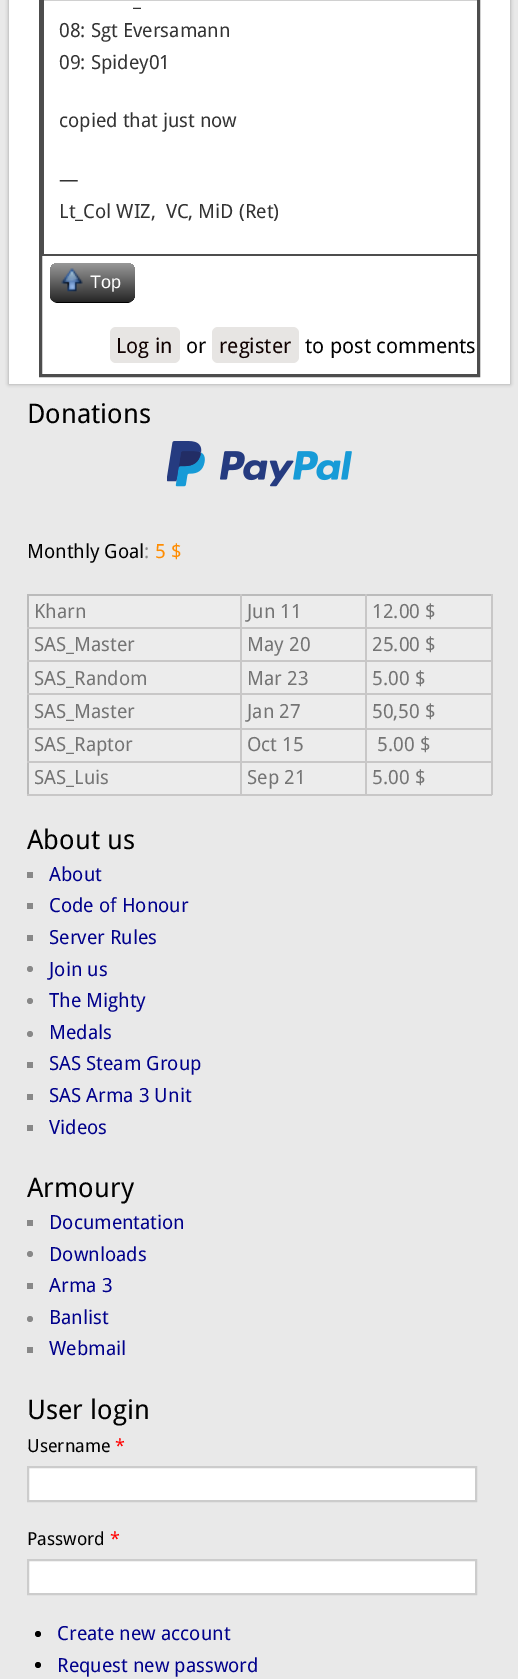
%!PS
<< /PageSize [518 1679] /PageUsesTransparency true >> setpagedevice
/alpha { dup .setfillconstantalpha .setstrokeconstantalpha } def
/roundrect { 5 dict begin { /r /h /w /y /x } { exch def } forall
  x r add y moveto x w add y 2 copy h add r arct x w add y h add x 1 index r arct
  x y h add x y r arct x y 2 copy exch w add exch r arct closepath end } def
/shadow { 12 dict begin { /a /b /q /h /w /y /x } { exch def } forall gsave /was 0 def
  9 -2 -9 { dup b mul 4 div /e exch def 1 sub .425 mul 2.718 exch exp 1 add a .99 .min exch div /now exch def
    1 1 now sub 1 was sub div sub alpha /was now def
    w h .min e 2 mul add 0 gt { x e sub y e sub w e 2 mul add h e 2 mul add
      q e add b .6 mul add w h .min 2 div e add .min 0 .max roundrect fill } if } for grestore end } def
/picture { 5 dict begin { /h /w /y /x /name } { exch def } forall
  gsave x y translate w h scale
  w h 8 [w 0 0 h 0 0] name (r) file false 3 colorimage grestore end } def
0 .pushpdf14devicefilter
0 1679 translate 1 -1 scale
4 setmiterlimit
0.914 setgray
0 0 518 1679 rectfill
0.6 setgray
9 -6 501 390 0 2 1 shadow
1 setgray
9 0 501 384 rectfill
0.302 setgray
3 setlinewidth
40.5 -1.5 438 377 rectstroke
42 0 2 254 rectfill
/DroidSans-Regular [19.5 0 0 -19.5 0 0] selectfont
0.2 setgray
133 6 moveto (_) show
59 37 moveto (08: Sgt Eversamann) show
59 69 moveto (09: Spidey01) show
59 127 moveto (copied that just now) show
59 186 moveto (—) show
59 218 moveto (Lt_Col WIZ,  VC, MiD \(Ret\)) show
0.302 setgray
42 254 435 2 rectfill
0 setgray
newpath 50 298 moveto 52 301 55 303 58 303 curveto 127 303 lineto 131 303 135 299 135 295 curveto 135 294 lineto 135 298 132 302 128 302 curveto 57 302 lineto 54 302 52 300 50 298 curveto closepath fill
gsave 50 263 85 39 8 roundrect clip newpath
<< /ShadingType 2 /ColorSpace /DeviceRGB /Coords [50 263 50 302] /Extend [true true] /Function << /FunctionType 2 /Domain [0 1] /C0 [0.6 0.6 0.6] /C1 [0.149 0.149 0.149] /N 1 >> >> shfill grestore
(img1.rgb) 61 268 22 24 picture
/LiberationSans-Regular [18 0 0 -18 0 0] selectfont
1 setgray
90 288 moveto (Top) show
0.906 0.898 0.89 setrgbcolor
110 327 70 36 6 roundrect fill
/DroidSans-Regular [21 0 0 -21 0 0] selectfont
0.063 0.004 0 setrgbcolor
116 353 moveto (Log in) show
0 setgray
186 353 moveto (or) show
0.906 0.898 0.89 setrgbcolor
212 327 87 36 6 roundrect fill
0.063 0.004 0 setrgbcolor
219 353 moveto (register) show
0 setgray
305 353 moveto (to post comments) show
/DroidSans-Regular [27 0 0 -27 0 0] selectfont
27 423 moveto (Donations) show
(img2.rgb) 167 441 185 46 picture
/DroidSans-Regular [19.5 0 0 -19.5 0 0] selectfont
27 558 moveto (Monthly Goal) show
0.533 setgray
144 558 moveto (:) show
1 0.549 0 setrgbcolor
155 558 moveto (5 $) show
0.925 setgray
29 596 462 198 rectfill
0.733 setgray
27 594 465 2 rectfill
27 594 2 201 rectfill
0.784 0.78 0.78 setrgbcolor
491 594 2 201 rectfill
365 794 127 2 rectfill
365 761 2 34 rectfill
365 761 127 2 rectfill
365 728 2 34 rectfill
365 728 127 2 rectfill
365 693 2 36 rectfill
365 693 127 2 rectfill
365 660 2 35 rectfill
365 660 127 2 rectfill
365 627 2 35 rectfill
365 627 127 2 rectfill
365 594 2 35 rectfill
240 794 126 2 rectfill
240 761 2 34 rectfill
240 761 126 2 rectfill
240 728 2 34 rectfill
240 728 126 2 rectfill
240 693 2 36 rectfill
240 693 126 2 rectfill
240 660 2 35 rectfill
240 660 126 2 rectfill
240 627 2 35 rectfill
240 627 126 2 rectfill
240 594 2 35 rectfill
27 627 215 2 rectfill
0.455 setgray
34 618 moveto (Kharn) show
247 618 moveto (Jun 11) show
372 618 moveto (12.00 $) show
0.784 0.78 0.78 setrgbcolor
27 660 215 2 rectfill
0.455 setgray
34 651 moveto (SAS_Master) show
247 651 moveto (May 20) show
372 651 moveto (25.00 $) show
0.784 0.78 0.78 setrgbcolor
27 693 215 2 rectfill
0.455 setgray
34 685 moveto (SAS_Random) show
247 685 moveto (Mar 23) show
372 685 moveto (5.00 $) show
0.784 0.78 0.78 setrgbcolor
27 728 215 2 rectfill
0.455 setgray
34 718 moveto (SAS_Master) show
247 718 moveto (Jan 27) show
372 718 moveto (50,50 $) show
0.784 0.78 0.78 setrgbcolor
27 761 215 2 rectfill
0.455 setgray
34 751 moveto (SAS_Raptor) show
247 751 moveto (Oct 15) show
377 751 moveto (5.00 $) show
0.784 0.78 0.78 setrgbcolor
27 794 215 2 rectfill
0.455 setgray
34 784 moveto (SAS_Luis) show
247 784 moveto (Sep 21) show
372 784 moveto (5.00 $) show
/DroidSans-Regular [27 0 0 -27 0 0] selectfont
0 setgray
27 849 moveto (About us) show
0.533 setgray
27 872 6 6 rectfill
/DroidSans-Regular [19.5 0 0 -19.5 0 0] selectfont
0 0 0.545 setrgbcolor
49 881 moveto (About) show
0.533 setgray
27 903 6 6 rectfill
0 0 0.545 setrgbcolor
49 912 moveto (Code of Honour) show
0.533 setgray
27 935 6 6 rectfill
0 0 0.545 setrgbcolor
49 944 moveto (Server Rules) show
0.533 setgray
newpath 30 969 3 0 360 arc closepath fill
0 0 0.545 setrgbcolor
49 976 moveto (Join us) show
0.533 setgray
newpath 30 1001 3 0 360 arc closepath fill
0 0 0.545 setrgbcolor
49 1007 moveto (The Mighty) show
0.533 setgray
newpath 30 1034 3 0 360 arc closepath fill
0 0 0.545 setrgbcolor
49 1039 moveto (Medals) show
0.533 setgray
27 1062 6 6 rectfill
0 0 0.545 setrgbcolor
49 1070 moveto (SAS Steam Group) show
0.533 setgray
27 1094 6 6 rectfill
0 0 0.545 setrgbcolor
49 1102 moveto (SAS Arma 3 Unit) show
0.533 setgray
27 1125 6 6 rectfill
0 0 0.545 setrgbcolor
49 1134 moveto (Videos) show
/DroidSans-Regular [27 0 0 -27 0 0] selectfont
0 setgray
27 1197 moveto (Armoury) show
0.533 setgray
27 1220 6 6 rectfill
/DroidSans-Regular [19.5 0 0 -19.5 0 0] selectfont
0 0 0.545 setrgbcolor
49 1229 moveto (Documentation) show
0.533 setgray
newpath 30 1254 3 0 360 arc closepath fill
0 0 0.545 setrgbcolor
49 1261 moveto (Downloads) show
0.533 setgray
27 1283 6 6 rectfill
0 0 0.545 setrgbcolor
49 1292 moveto (Arma 3) show
0.533 setgray
newpath 30 1319 3 0 360 arc closepath fill
0 0 0.545 setrgbcolor
49 1324 moveto (Banlist) show
0.533 setgray
27 1347 6 6 rectfill
0 0 0.545 setrgbcolor
49 1355 moveto (Webmail) show
/DroidSans-Regular [27 0 0 -27 0 0] selectfont
0 setgray
27 1419 moveto (User login) show
/DroidSans-Regular [18 0 0 -18 0 0] selectfont
27 1452 moveto (Username) show
1 0 0 setrgbcolor
115 1452 moveto (*) show
1 setgray
newpath 28 1467 moveto 476 1467 lineto 476 1501 lineto 28 1501 lineto closepath gsave fill grestore
0.8 setgray
2 setlinewidth
stroke
0 setgray
27 1545 moveto (Password) show
1 0 0 setrgbcolor
110 1545 moveto (*) show
1 setgray
newpath 28 1560 moveto 476 1560 lineto 476 1594 lineto 28 1594 lineto closepath gsave fill grestore
0.8 setgray
stroke
0 setgray
newpath 38 1634 3 0 360 arc closepath fill
/DroidSans-Regular [19.5 0 0 -19.5 0 0] selectfont
0 0 0.545 setrgbcolor
57 1640 moveto (Create new account) show
0 setgray
newpath 38 1665 3 0 360 arc closepath fill
0 0 0.545 setrgbcolor
57 1672 moveto (Request new password) show
.poppdf14devicefilter showpage
